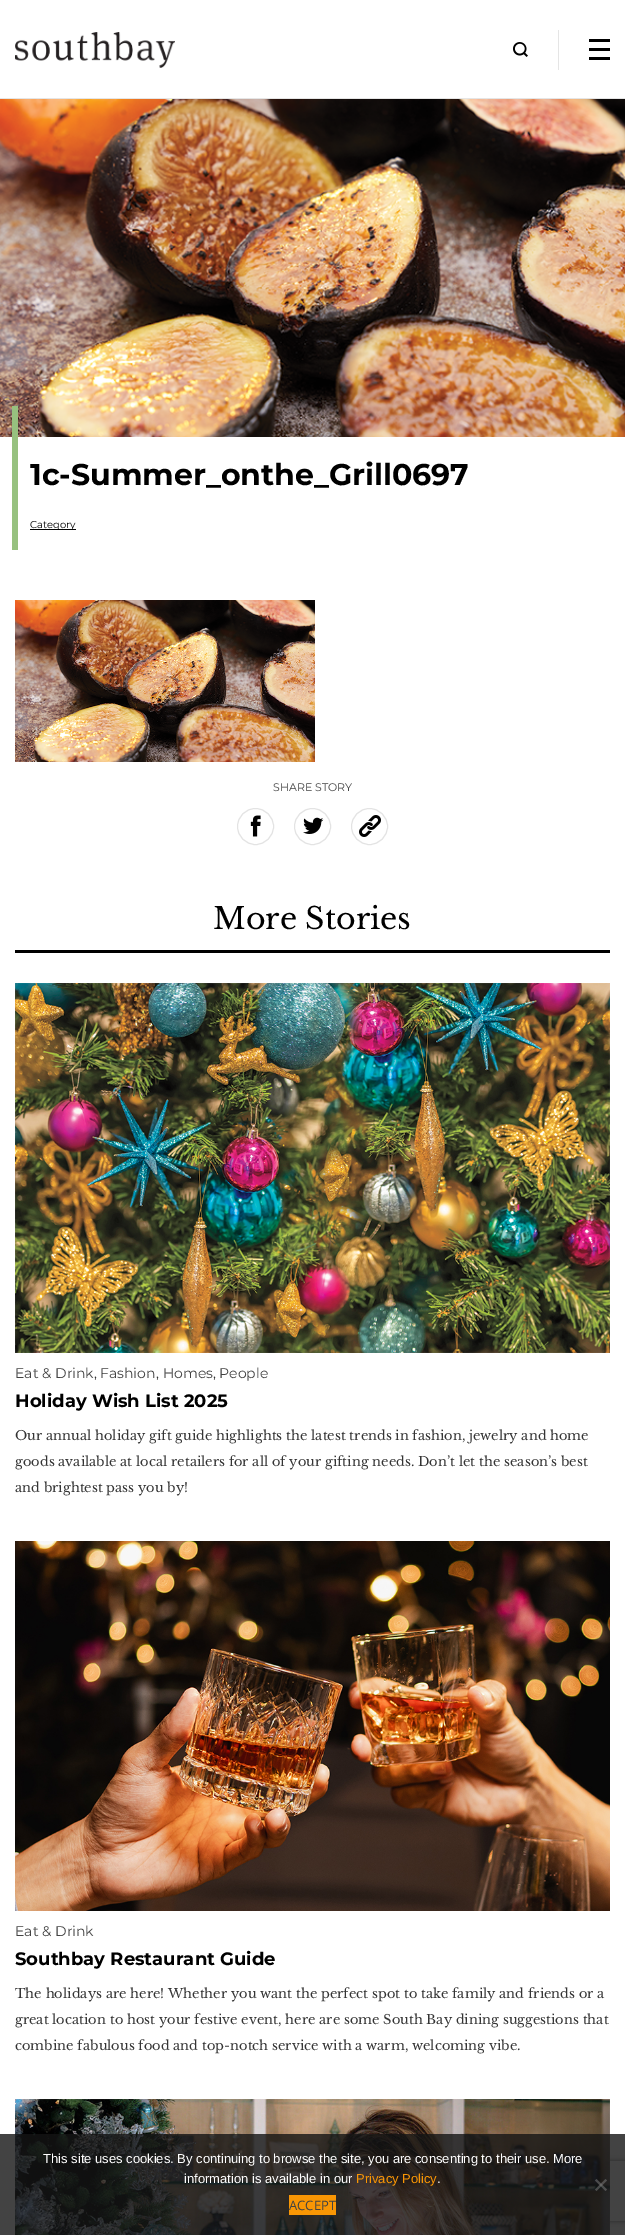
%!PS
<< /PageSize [625 2235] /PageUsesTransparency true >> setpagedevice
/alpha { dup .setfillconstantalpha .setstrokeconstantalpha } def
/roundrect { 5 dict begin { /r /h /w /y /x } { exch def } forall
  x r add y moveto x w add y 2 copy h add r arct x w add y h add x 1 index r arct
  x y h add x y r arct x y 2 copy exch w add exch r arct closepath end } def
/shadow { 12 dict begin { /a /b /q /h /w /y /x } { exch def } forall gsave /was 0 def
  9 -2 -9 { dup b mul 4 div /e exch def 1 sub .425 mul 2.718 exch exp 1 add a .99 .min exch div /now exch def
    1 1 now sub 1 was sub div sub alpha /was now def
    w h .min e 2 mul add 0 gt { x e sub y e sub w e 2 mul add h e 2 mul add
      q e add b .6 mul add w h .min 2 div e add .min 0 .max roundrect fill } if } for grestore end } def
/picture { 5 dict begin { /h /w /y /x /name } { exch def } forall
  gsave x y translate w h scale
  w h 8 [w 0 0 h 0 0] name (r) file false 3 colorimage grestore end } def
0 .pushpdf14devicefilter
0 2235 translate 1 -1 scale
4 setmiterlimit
1 setgray
0 0 625 2235 rectfill
(img1.rgb) 15 32 160 36 picture
0.898 setgray
558 30 1 40 rectfill
(img2.rgb) 513 42 15 15 picture
0 setgray
589 39 21 3 rectfill
589 48 21 3 rectfill
589 57 21 3 rectfill
0.898 setgray
0 98 625 1 rectfill
(img3.rgb) 0 99 625 338 picture
0.592 0.757 0.498 setrgbcolor
12 406 6 144 rectfill
/Montserrat-Bold [30 0 0 -30 0 0] selectfont
0 setgray
30 485 moveto (1c-Summer_onthe_Grill0697) show
30 529 46 1 rectfill
/Montserrat-Regular [10 0 0 -10 0 0] selectfont
30 528 moveto (Category) show
(img4.rgb) 15 600 300 162 picture
/Montserrat-Regular [11 0 0 -11 0 0] selectfont
0.259 setgray
273 791 moveto (SHARE STORY) show
0.89 setgray
newpath 255.5 826.5 18 0 360 arc closepath stroke
(img5.rgb) 250 815 11 22 picture
newpath 312.5 826.5 18 0 360 arc closepath stroke
(img6.rgb) 303 817 21 17 picture
newpath 369.5 826.5 18 0 360 arc closepath stroke
(img7.rgb) 359 815 22 22 picture
/LibreBaskerville-Regular [30 0 0 -30 0 0] selectfont
0 setgray
213 929 moveto (More Stories) show
15 950 595 3 rectfill
(img8.rgb) 15 983 595 370 picture
/Montserrat-Regular [14 0 0 -14 0 0] selectfont
0.259 setgray
15 1378 moveto (Eat & Drink) show
0.204 setgray
94 1378 moveto (,) show
0.259 setgray
100 1378 moveto (Fashion) show
0.204 setgray
156 1378 moveto (,) show
0.259 setgray
163 1378 moveto (Homes) show
0.204 setgray
213 1378 moveto (,) show
0.259 setgray
219 1378 moveto (People) show
/Montserrat-Bold [18 0 0 -18 0 0] selectfont
0 setgray
15 1407 moveto (Holiday Wish List 2025) show
/LibreBaskerville-Regular [13 0 0 -13 0 0] selectfont
0.204 setgray
15 1440 moveto (Our annual holiday gift guide highlights the latest trends in fashion, jewelry and home) show
15 1466 moveto (goods available at local retailers for all of your gifting needs. Don’t let the season’s best) show
15 1492 moveto (and brightest pass you by!) show
(img9.rgb) 15 1541 595 370 picture
/Montserrat-Regular [14 0 0 -14 0 0] selectfont
0.259 setgray
15 1936 moveto (Eat & Drink) show
/Montserrat-Bold [18 0 0 -18 0 0] selectfont
0 setgray
15 1965 moveto (Southbay Restaurant Guide) show
/LibreBaskerville-Regular [13 0 0 -13 0 0] selectfont
0.204 setgray
15 1998 moveto (The holidays are here! Whether you want the perfect spot to take family and friends or a) show
15 2024 moveto (great location to host your festive event, here are some South Bay dining suggestions that) show
15 2050 moveto (combine fabulous food and top-notch service with a warm, welcoming vibe.) show
gsave
newpath 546 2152 moveto 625 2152 lineto 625 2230 lineto 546 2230 lineto closepath 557 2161 moveto 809 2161 lineto 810 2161 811 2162 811 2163 curveto 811 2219 lineto 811 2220 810 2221 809 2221 curveto 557 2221 lineto 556 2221 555 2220 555 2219 curveto 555 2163 lineto 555 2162 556 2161 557 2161 curveto closepath eoclip newpath
0.502 setgray
555 2161 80 60 2 2.5 1 shadow
grestore
(img10.rgb) 15 2099 595 136 picture
0.8 alpha
0.078 setgray
0 2134 625 101 rectfill
/LiberationSans-Regular [13 0 0 -13 0 0] selectfont
1 alpha
1 setgray
43 2163 moveto (This site uses cookies. By continuing to browse the site, you are consenting to their use. More) show
184 2183 moveto (information is available in our) show
0.976 0.588 0.016 setrgbcolor
356 2183 moveto (Privacy Policy) show
1 setgray
437 2183 moveto (.) show
0.5 alpha
0.502 setgray
newpath 605.5 2179 moveto 607 2180.5 lineto 596.5 2191 lineto 595 2189.5 lineto closepath fill
newpath 595 2180.5 moveto 596.5 2179 lineto 607 2189.5 lineto 605.5 2191 lineto closepath fill
1 alpha
0.976 0.588 0.016 setrgbcolor
289 2195 47 20 rectfill
/OpenSans-Regular [13 0 0 -13 0 0] selectfont
0.259 setgray
289 2210 moveto (ACCEPT) show
.poppdf14devicefilter showpage
